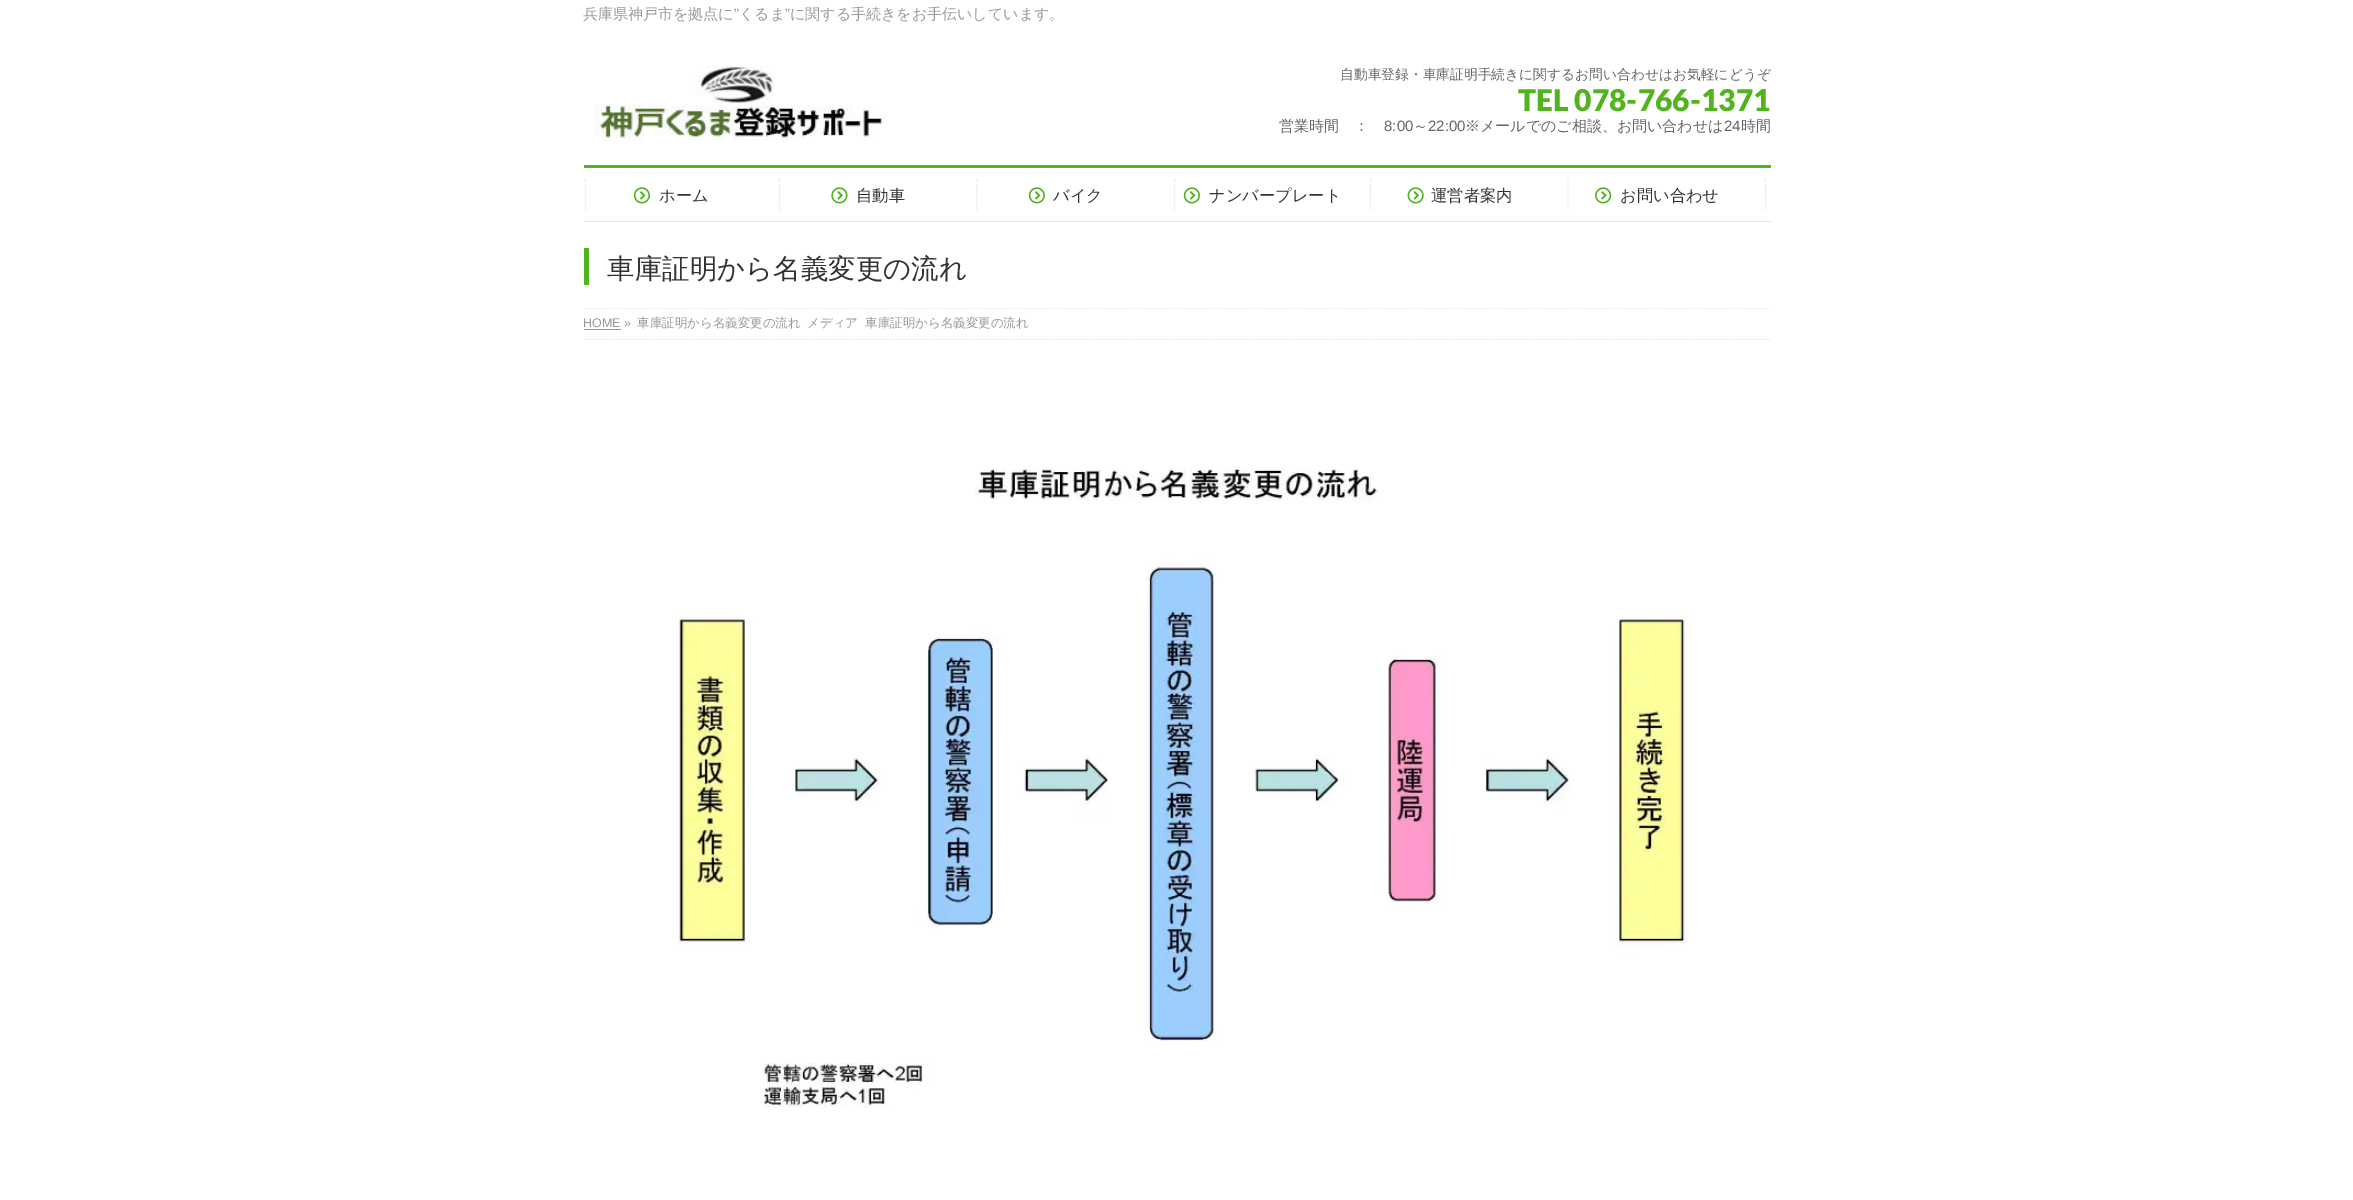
%!PS
<< /PageSize [2353 1200] >> setpagedevice
/picture { 5 dict begin { /h /w /y /x /name } { exch def } forall
  gsave x y translate w h scale
  w h 8 [w 0 0 h 0 0] name (r) file false 3 colorimage grestore end } def
0 1200 translate 1 -1 scale
4 setmiterlimit
1 setgray
0 0 2353 1200 rectfill
/WenQuanYiZenHei-Medium [15 0 0 -15 0 0] selectfont
0.6 setgray
583 19 moveto (兵庫県神戸市を拠点に) show
/LiberationSans-Regular [15 0 0 -15 0 0] selectfont
734 19 moveto (”) show
/WenQuanYiZenHei-Medium [15 0 0 -15 0 0] selectfont
739 19 moveto (くるま) show
/LiberationSans-Regular [15 0 0 -15 0 0] selectfont
785 19 moveto (”) show
/WenQuanYiZenHei-Medium [15 0 0 -15 0 0] selectfont
790 19 moveto (に関する手続きをお手伝いしています。) show
(img1.rgb) 594 65 290 75 picture
/WenQuanYiZenHei-Medium [13.75 0 0 -13.75 0 0] selectfont
0.4 setgray
1340 79 moveto (自動車登録・車庫証明手続きに関するお問い合わせはお気軽にどうぞ) show
/Lato-Black [30 0 0 -30 0 0] selectfont
0.318 0.702 0.118 setrgbcolor
1518 111 moveto (TEL 078-766-1371) show
/WenQuanYiZenHei-Medium [15 0 0 -15 0 0] selectfont
0.4 setgray
1279 131 moveto (営業時間　：) show
/LiberationSans-Regular [15 0 0 -15 0 0] selectfont
1384 131 moveto (8:00) show
/WenQuanYiZenHei-Medium [15 0 0 -15 0 0] selectfont
1413 131 moveto (～) show
/LiberationSans-Regular [15 0 0 -15 0 0] selectfont
1428 131 moveto (22:00) show
/WenQuanYiZenHei-Medium [15 0 0 -15 0 0] selectfont
1465 131 moveto (※メールでのご相談、お問い合わせは) show
/LiberationSans-Regular [15 0 0 -15 0 0] selectfont
1724 131 moveto (24) show
/WenQuanYiZenHei-Medium [15 0 0 -15 0 0] selectfont
1741 131 moveto (時間) show
0.318 0.702 0.118 setrgbcolor
584 165 1187 3 rectfill
0.898 setgray
584 221 1187 1 rectfill
1.2 setlinewidth
[1.25 1.25] 0 setdash
newpath 585.5 179 moveto 585.5 211 lineto stroke
(img2.rgb) 633 187 17 17 picture
/WenQuanYiZenHei-Medium [16.25 0 0 -16.25 0 0] selectfont
0.2 setgray
659 201 moveto (ホーム) show
0.898 setgray
newpath 779.5 179 moveto 779.5 211 lineto stroke
(img3.rgb) 831 187 17 17 picture
0.2 setgray
856 201 moveto (自動車) show
0.898 setgray
newpath 977 179 moveto 977 211 lineto stroke
(img2.rgb) 1028 187 17 17 picture
0.2 setgray
1053 201 moveto (バイク) show
0.898 setgray
newpath 1174.5 179 moveto 1174.5 211 lineto stroke
(img2.rgb) 1183 187 17 17 picture
0.2 setgray
1209 201 moveto (ナンバープレート) show
0.898 setgray
newpath 1370.5 179 moveto 1370.5 211 lineto stroke
(img4.rgb) 1407 187 17 17 picture
0.2 setgray
1431 201 moveto (運営者案内) show
0.898 setgray
newpath 1568 179 moveto 1568 211 lineto stroke
(img5.rgb) 1595 187 17 17 picture
0.2 setgray
1620 201 moveto (お問い合わせ) show
0.898 setgray
newpath 1765.5 179 moveto 1765.5 211 lineto stroke
0.318 0.702 0.118 setrgbcolor
584 248 5 37 rectfill
/WenQuanYiZenHei-Medium [27.5 0 0 -27.5 0 0] selectfont
0.2 setgray
607 278 moveto (車庫証明から名義変更の流れ) show
gsave
553 308 1250 32 rectclip
0.898 setgray
newpath 584 308 moveto 1771 308 lineto stroke
newpath 584 339.5 moveto 1771 339.5 lineto stroke
grestore
/LiberationSans-Regular [12.5 0 0 -12.5 0 0] selectfont
0.6 setgray
583 327 moveto (HOME ») show
584 329 37 1 rectfill
/WenQuanYiZenHei-Medium [12.5 0 0 -12.5 0 0] selectfont
637 327 moveto (車庫証明から名義変更の流れ) show
807 327 moveto (メディア) show
865 327 moveto (車庫証明から名義変更の流れ) show
(img6.rgb) 676 467 1012 641 picture
showpage
